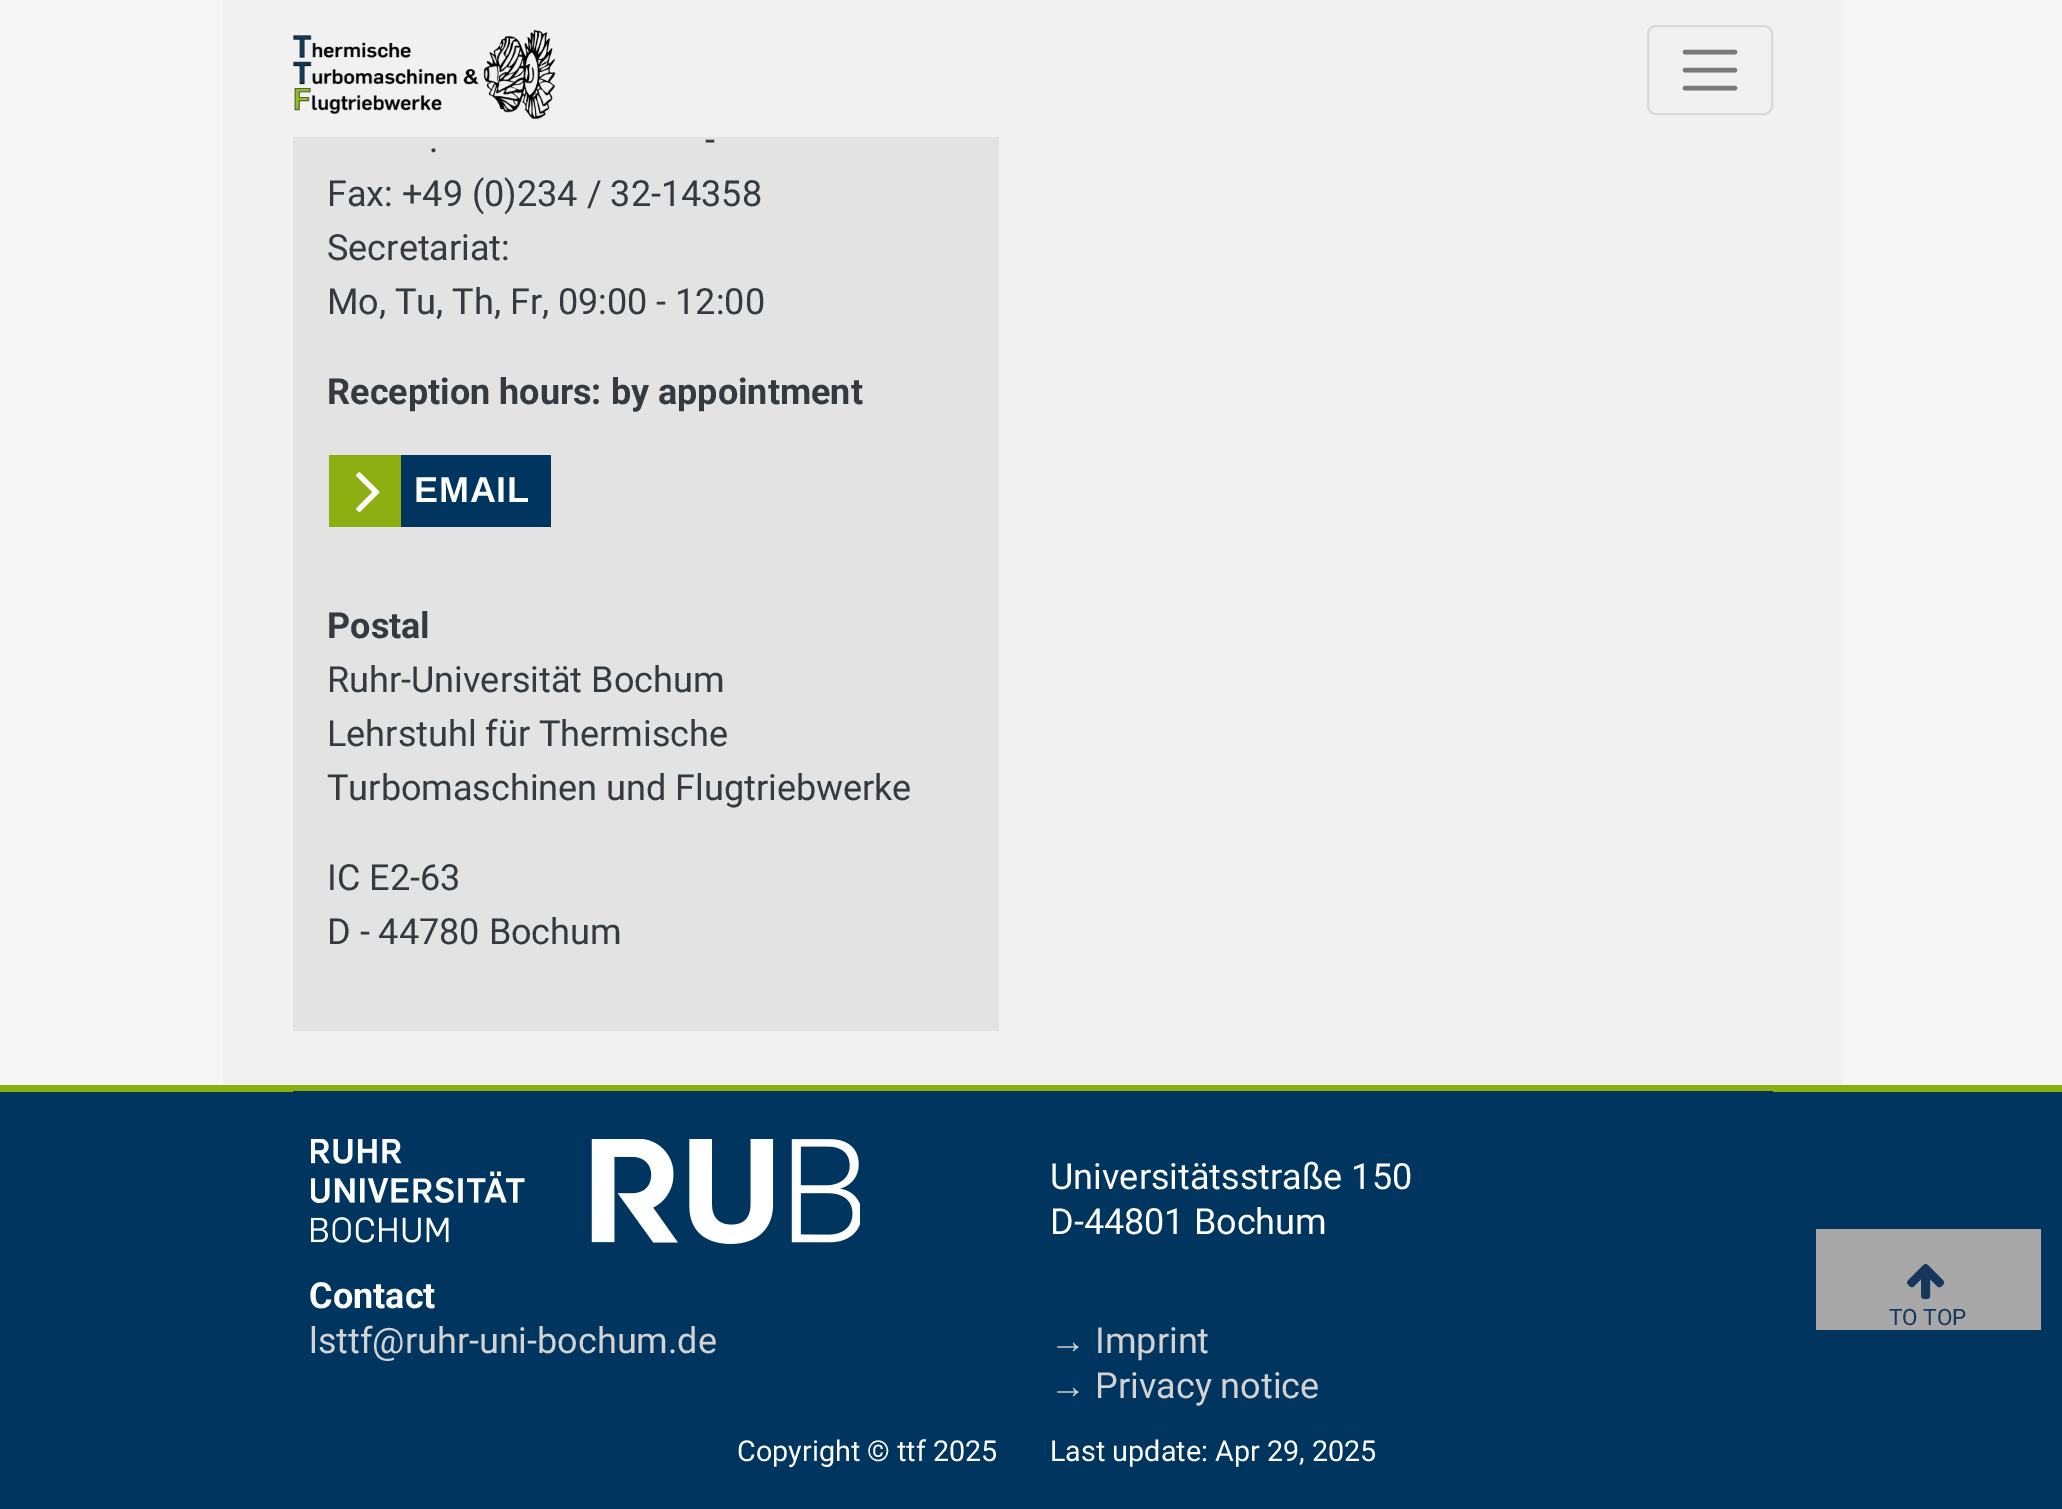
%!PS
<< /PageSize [2062 1509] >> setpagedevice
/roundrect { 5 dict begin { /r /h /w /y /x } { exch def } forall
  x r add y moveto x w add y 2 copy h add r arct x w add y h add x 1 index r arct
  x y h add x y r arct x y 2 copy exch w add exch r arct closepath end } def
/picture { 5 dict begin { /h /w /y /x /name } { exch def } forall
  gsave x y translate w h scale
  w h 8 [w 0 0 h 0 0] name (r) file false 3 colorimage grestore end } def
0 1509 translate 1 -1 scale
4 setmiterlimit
0.965 setgray
0 0 2062 1509 rectfill
0.949 0.945 0.945 setrgbcolor
223 0 1620 1085 rectfill
(img1.rgb) 293 30 263 89 picture
0.855 0.851 0.851 setrgbcolor
2 setlinewidth
1648 26 124 88 8 roundrect stroke
0.475 setgray
4.5 setlinewidth
1 setlinecap
newpath 1685 52 moveto 1735 52 lineto 1685 70 moveto 1735 70 lineto 1685 88 moveto 1735 88 lineto stroke
0.89 setgray
293 137 706 894 rectfill
/Roboto-Regular [36 0 0 -36 0 0] selectfont
0.204 0.227 0.251 setrgbcolor
705 152 moveto (-) show
429 152 moveto (.) show
327 206 moveto (Fax: +49 \(0\)234 / 32-14358) show
327 260 moveto (Secretariat:) show
327 314 moveto (Mo, Tu, Th, Fr, 09:00 - 12:00) show
/Roboto-Bold [36 0 0 -36 0 0] selectfont
327 404 moveto (Reception hours: by appointment) show
0.553 0.682 0.063 setrgbcolor
329 455 72 72 rectfill
(img2.rgb) 356 472 24 41 picture
0 0.208 0.376 setrgbcolor
401 455 150 72 rectfill
/LiberationSans-Bold [36 0 0 -36 0 0] selectfont
1 setgray
414 502 moveto 0.75 0 (EMAIL) ashow
/Roboto-Bold [36 0 0 -36 0 0] selectfont
0.204 0.227 0.251 setrgbcolor
327 638 moveto (Postal) show
/Roboto-Regular [36 0 0 -36 0 0] selectfont
327 692 moveto (Ruhr-Universität Bochum) show
327 746 moveto (Lehrstuhl für Thermische) show
327 800 moveto (Turbomaschinen und Flugtriebwerke) show
327 890 moveto (IC E2-63) show
327 944 moveto (D - 44780 Bochum) show
0 0.208 0.376 setrgbcolor
0 1092 2062 417 rectfill
0.553 0.682 0.063 setrgbcolor
0 1085 2062 7 rectfill
0 0.208 0.376 setrgbcolor
293 1091 1480 1 rectfill
(img3.rgb) 311 1139 549 105 picture
1 setgray
1050 1189 moveto (Universitätsstraße 150) show
1050 1234 moveto (D-44801 Bochum) show
/Roboto-Bold [36 0 0 -36 0 0] selectfont
309 1308 moveto (Contact) show
/Roboto-Regular [36 0 0 -36 0 0] selectfont
0.827 setgray
309 1353 moveto (lsttf@ruhr-uni-bochum.de) show
/LiberationSans-Regular [36 0 0 -36 0 0] selectfont
1050 1353 moveto (→) show
/Roboto-Regular [36 0 0 -36 0 0] selectfont
1095 1353 moveto (Imprint) show
/LiberationSans-Regular [36 0 0 -36 0 0] selectfont
1050 1398 moveto (→) show
/Roboto-Regular [36 0 0 -36 0 0] selectfont
1095 1398 moveto (Privacy notice) show
/Roboto-Regular [28.75 0 0 -28.75 0 0] selectfont
1 setgray
737 1461 moveto (Copyright © ttf 2025) show
1050 1461 moveto (Last update: Apr 29, 2025) show
0.659 setgray
1816 1229 225 101 rectfill
(img4.rgb) 1907 1264 38 36 picture
/Roboto-Regular [22.5 0 0 -22.5 0 0] selectfont
0.09 0.212 0.361 setrgbcolor
1889 1325 moveto (TO TOP) show
showpage
